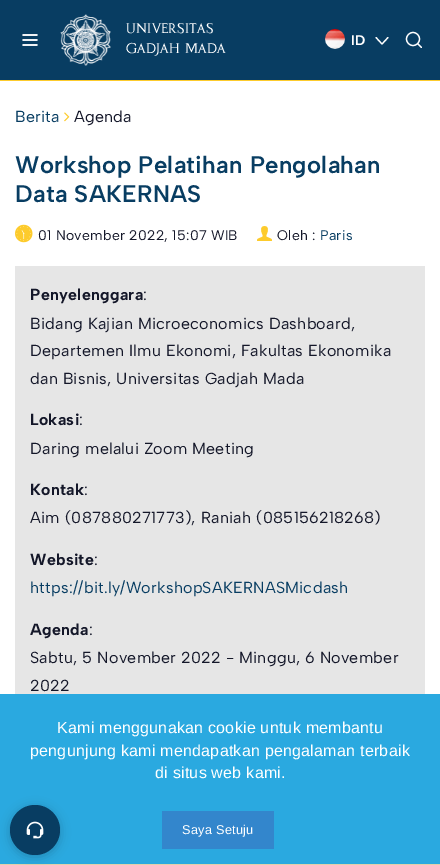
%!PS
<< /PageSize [440 865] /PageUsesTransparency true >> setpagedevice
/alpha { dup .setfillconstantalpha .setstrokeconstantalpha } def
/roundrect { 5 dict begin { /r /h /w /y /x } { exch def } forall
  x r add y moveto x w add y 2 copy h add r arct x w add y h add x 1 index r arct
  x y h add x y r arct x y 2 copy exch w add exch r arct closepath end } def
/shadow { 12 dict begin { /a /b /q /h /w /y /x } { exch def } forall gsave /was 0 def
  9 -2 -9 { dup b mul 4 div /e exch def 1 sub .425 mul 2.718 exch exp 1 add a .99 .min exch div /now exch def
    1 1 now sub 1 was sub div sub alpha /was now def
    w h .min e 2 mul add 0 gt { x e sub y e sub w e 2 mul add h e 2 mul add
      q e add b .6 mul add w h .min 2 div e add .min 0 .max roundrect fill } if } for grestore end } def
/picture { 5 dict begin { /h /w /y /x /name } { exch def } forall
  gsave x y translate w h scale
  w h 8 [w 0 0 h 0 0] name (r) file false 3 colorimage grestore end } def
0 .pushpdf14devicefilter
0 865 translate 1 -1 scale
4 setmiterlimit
1 setgray
0 0 440 865 rectfill
0.031 0.239 0.384 setrgbcolor
0 0 440 80 rectfill
0.992 0.796 0.173 setrgbcolor
0 80 440 1 rectfill
(img1.rgb) 22 34 16 12 picture
(img2.rgb) 60 14 51 52 picture
/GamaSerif-Regular [14 0 0 -14 0 0] selectfont
1 setgray
126 33 moveto 0.25 0 (UNIVERSITAS) ashow
126 53 moveto 0.25 0 (GADJAH MADA) ashow
(img3.rgb) 325 29 20 20 picture
/AlbertSans-Bold [14 0 0 -14 0 0] selectfont
351 45 moveto (ID) show
1.2 setlinewidth
1 setlinecap
1 setlinejoin
newpath 388 37.5 moveto 382 44 lineto 376 37.5 lineto stroke
0 setlinecap
0 setlinejoin
newpath 413 39 6.5 0 360 arc closepath stroke
1 setlinecap
1 setlinejoin
newpath 417.5 43.5 moveto 421.5 47.5 lineto stroke
/AlbertSans-Regular [16 0 0 -16 0 0] selectfont
0.031 0.239 0.384 setrgbcolor
15 122 moveto 0.25 0 (Berita) ashow
(img4.rgb) 64 112 6 10 picture
0.078 0.09 0.161 setrgbcolor
74 122 moveto 0.25 0 (Agenda) ashow
/AlbertSans-SemiBold [24 0 0 -24 0 0] selectfont
0.031 0.239 0.384 setrgbcolor
15 173 moveto 0.25 0 (Workshop Pelatihan Pengolahan) ashow
15 202 moveto 0.25 0 (Data SAKERNAS) ashow
(img5.rgb) 15 224 18 19 picture
/AlbertSans-Regular [14 0 0 -14 0 0] selectfont
0.078 0.09 0.161 setrgbcolor
38 240 moveto 0.25 0 (01 November 2022, 15:07 WIB) ashow
(img6.rgb) 257 226 15 15 picture
277 240 moveto 0.25 0 (Oleh :) ashow
0.031 0.239 0.384 setrgbcolor
320 240 moveto 0.25 0 (Paris) ashow
0.902 setgray
15 266 410 428 rectfill
/AlbertSans-Bold [16 0 0 -16 0 0] selectfont
0.078 0.09 0.161 setrgbcolor
30 300 moveto 0.25 0 (Penyelenggara) ashow
/AlbertSans-Regular [16 0 0 -16 0 0] selectfont
143 300 moveto 0.25 0 (:) ashow
30 329 moveto 0.25 0 (Bidang Kajian Microeconomics Dashboard,) ashow
30 356 moveto 0.25 0 (Departemen Ilmu Ekonomi, Fakultas Ekonomika) ashow
30 384 moveto 0.25 0 (dan Bisnis, Universitas Gadjah Mada) ashow
/AlbertSans-Bold [16 0 0 -16 0 0] selectfont
30 425 moveto 0.25 0 (Lokasi) ashow
/AlbertSans-Regular [16 0 0 -16 0 0] selectfont
79 425 moveto 0.25 0 (:) ashow
30 454 moveto 0.25 0 (Daring melalui Zoom Meeting) ashow
/AlbertSans-Bold [16 0 0 -16 0 0] selectfont
30 495 moveto 0.25 0 (Kontak) ashow
/AlbertSans-Regular [16 0 0 -16 0 0] selectfont
84 495 moveto 0.25 0 (:) ashow
30 523 moveto 0.25 0 (Aim \(087880271773\), Raniah \(085156218268\)) ashow
/AlbertSans-Bold [16 0 0 -16 0 0] selectfont
30 565 moveto 0.25 0 (Website) ashow
/AlbertSans-Regular [16 0 0 -16 0 0] selectfont
94 565 moveto 0.25 0 (:) ashow
0.031 0.239 0.384 setrgbcolor
30 593 moveto 0.25 0 (https://bit.ly/WorkshopSAKERNASMicdash) ashow
/AlbertSans-Bold [16 0 0 -16 0 0] selectfont
0.078 0.09 0.161 setrgbcolor
30 635 moveto 0.25 0 (Agenda) ashow
/AlbertSans-Regular [16 0 0 -16 0 0] selectfont
89 635 moveto 0.25 0 (:) ashow
30 663 moveto 0.25 0 (Sabtu, 5 November 2022 - Minggu, 6 November) ashow
30 691 moveto 0.25 0 (2022) ashow
0.165 0.663 0.878 setrgbcolor
0 694 440 170 rectfill
0.882 0.82 0.671 setrgbcolor
0 864 440 1 rectfill
/LiberationSans-Regular [16 0 0 -16 0 0] selectfont
1 setgray
57 733 moveto 0.25 0 (Kami menggunakan cookie untuk membantu) ashow
30 756 moveto 0.25 0 (pengunjung kami mendapatkan pengalaman terbaik) ashow
155 778 moveto 0.25 0 (di situs web kami.) ashow
0.2 0.525 0.8 setrgbcolor
162 811 112 38 rectfill
/LiberationSans-Regular [12.75 0 0 -12.75 0 0] selectfont
1 setgray
182 834 moveto 0.25 0 (Saya Setuju) ashow
0 setgray
10 807 50 50 25 5 0.2 shadow
0.031 0.239 0.384 setrgbcolor
newpath 35 830 25 0 360 arc closepath fill
(img7.rgb) 26 821 18 18 picture
.poppdf14devicefilter showpage
